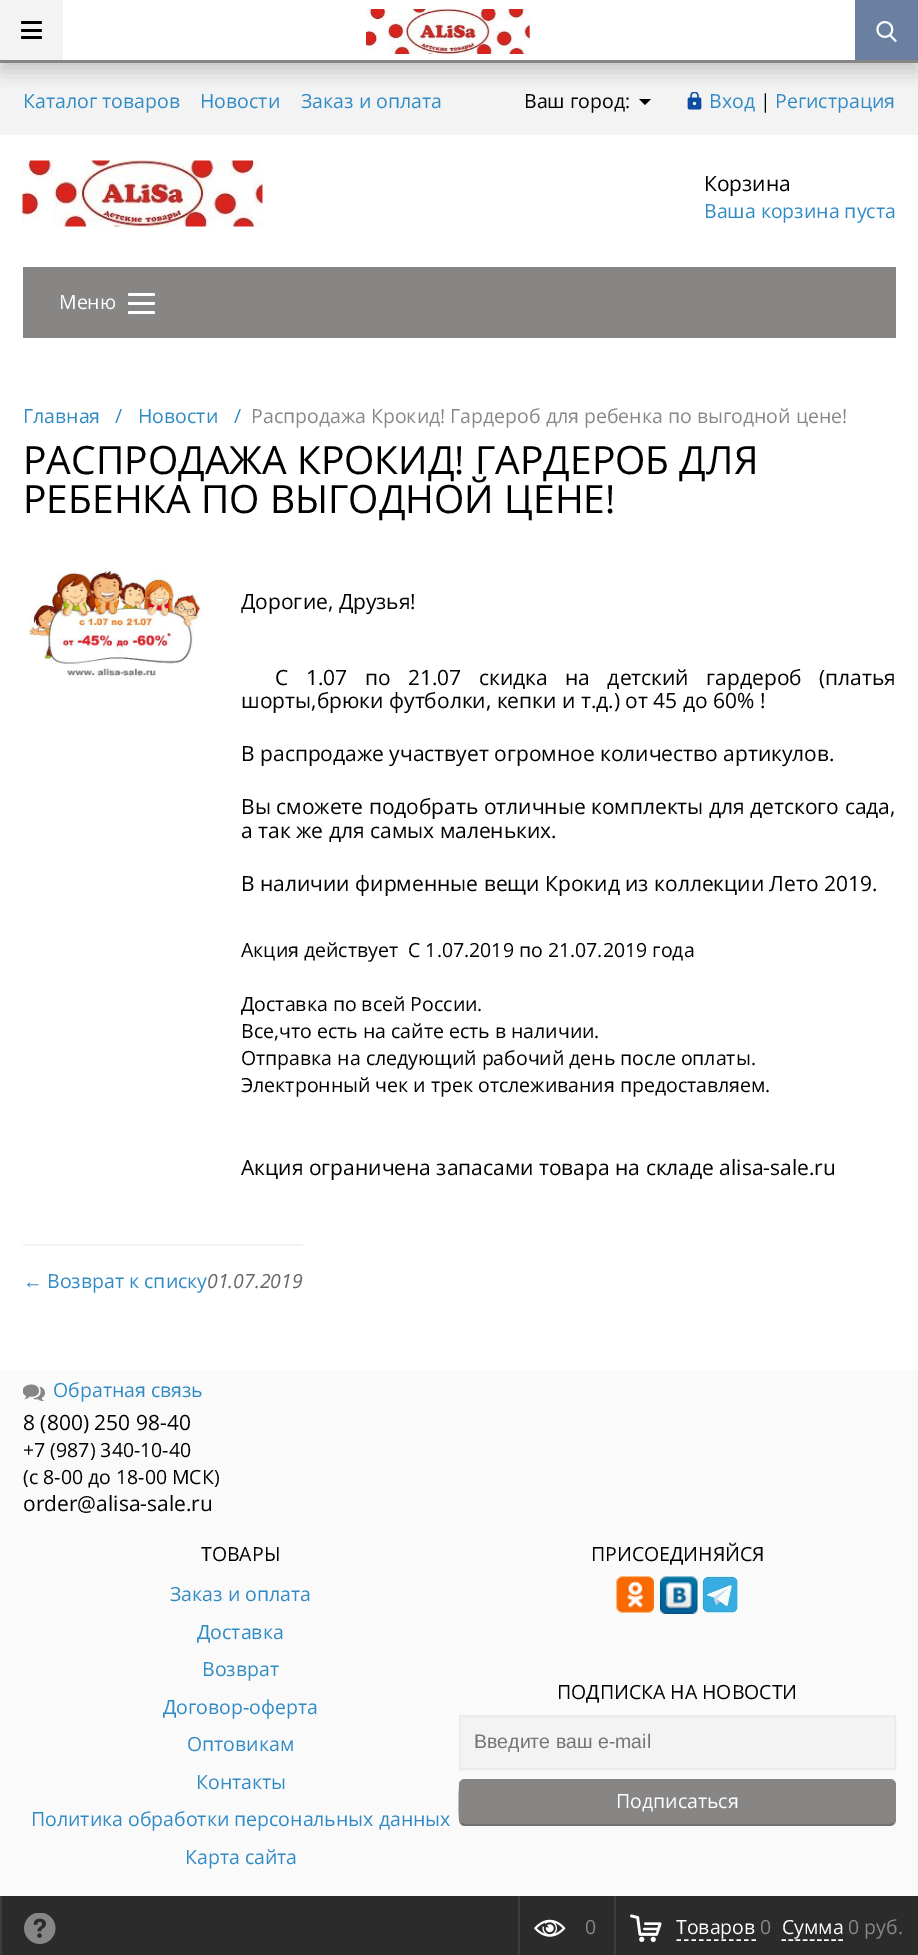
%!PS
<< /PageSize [918 1955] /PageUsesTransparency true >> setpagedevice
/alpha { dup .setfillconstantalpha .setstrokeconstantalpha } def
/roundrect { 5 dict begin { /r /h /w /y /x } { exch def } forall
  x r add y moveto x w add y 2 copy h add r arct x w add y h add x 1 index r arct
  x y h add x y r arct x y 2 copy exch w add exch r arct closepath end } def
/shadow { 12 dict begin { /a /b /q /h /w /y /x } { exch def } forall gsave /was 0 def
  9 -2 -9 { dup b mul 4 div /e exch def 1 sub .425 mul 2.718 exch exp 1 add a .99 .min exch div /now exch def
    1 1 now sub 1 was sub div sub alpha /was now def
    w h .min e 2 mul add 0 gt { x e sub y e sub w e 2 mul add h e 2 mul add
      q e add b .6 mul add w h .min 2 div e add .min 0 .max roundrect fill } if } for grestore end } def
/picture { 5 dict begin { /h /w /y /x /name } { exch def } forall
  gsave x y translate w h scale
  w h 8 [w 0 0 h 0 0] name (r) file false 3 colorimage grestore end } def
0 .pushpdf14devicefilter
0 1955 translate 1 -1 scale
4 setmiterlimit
1 setgray
0 0 918 1955 rectfill
0.953 setgray
0 63 918 72 rectfill
0 setgray
newpath 639 99 moveto 645 105 lineto 651 99 lineto closepath eofill
(img3.rgb) 687 92 15 18 picture
0 9 918 63 0 9 0.18 shadow
1 setgray
63 0 792 60 rectfill
0.533 0.522 0.522 setrgbcolor
0 60 918 3 rectfill
0.953 setgray
0 0 63 60 rectfill
0 setgray
21 21 21 3 1.5 roundrect fill
21 29 21 3 1.5 roundrect fill
21 36 21 3 1.5 roundrect fill
(img1.rgb) 366 9 164 45 picture
0.42 0.502 0.627 setrgbcolor
855 0 63 60 rectfill
(img2.rgb) 876 21 21 21 picture
/OpenSans-Regular [19.5 0 0 -19.5 0 0] selectfont
0.188 0.541 0.769 setrgbcolor
23 108 moveto (Каталог товаров) show
200 108 moveto (Новости) show
301 108 moveto (Заказ и оплата) show
0 setgray
524 108 moveto (Ваш город:) show
0.188 0.541 0.769 setrgbcolor
709 108 moveto (Вход) show
0 setgray
760 108 moveto (|) show
0.188 0.541 0.769 setrgbcolor
775 108 moveto (Регистрация) show
(img4.rgb) 22 160 241 67 picture
/OpenSans-Regular [21 0 0 -21 0 0] selectfont
0 setgray
704 191 moveto (Корзина) show
/OpenSans-Regular [19.5 0 0 -19.5 0 0] selectfont
0.188 0.541 0.769 setrgbcolor
704 218 moveto (Ваша корзина пуста) show
0.533 0.522 0.522 setrgbcolor
23 267 873 71 rectfill
1 setgray
59 309 moveto (Меню) show
128 293 27 3 1.5 roundrect fill
128 302 27 3 1.5 roundrect fill
128 311 27 3 1.5 roundrect fill
0.188 0.541 0.769 setrgbcolor
23 423 moveto (Главная) show
115 423 moveto (/) show
138 423 moveto (Новости) show
234 423 moveto (/) show
0.529 setgray
251 423 moveto (Распродажа Крокид! Гардероб для ребенка по выгодной цене!) show
/OpenSans-Regular [39 0 0 -39 0 0] selectfont
0 setgray
23 474 moveto (РАСПРОДАЖА КРОКИД! ГАРДЕРОБ ДЛЯ) show
23 513 moveto (РЕБЕНКА ПО ВЫГОДНОЙ ЦЕНЕ!) show
(img5.rgb) 29 567 172 111 picture
/OpenSans-Regular [21 0 0 -21 0 0] selectfont
241 609 moveto (Дорогие, Друзья!) show
275 685 moveto 12 0 32 (С 1.07 по 21.07 скидка на детский гардероб \(платья) widthshow
241 708 moveto (шорты,брюки футболки, кепки и т.д.\) от 45 до 60% !) show
241 761 moveto (В распродаже участвует огромное количество артикулов.) show
241 814 moveto (Вы сможете подобрать отличные комплекты для детского сада,) show
241 838 moveto (а так же для самых маленьких.) show
241 891 moveto (В наличии фирменные вещи Крокид из коллекции Лето 2019.) show
/OpenSans-Regular [19.5 0 0 -19.5 0 0] selectfont
241 957 moveto (Акция действует  С 1.07.2019 по 21.07.2019 года) show
241 1011 moveto (Доставка по всей России.) show
241 1038 moveto (Все,что есть на сайте есть в наличии.) show
241 1065 moveto (Отправка на следующий рабочий день после оплаты.) show
241 1092 moveto (Электронный чек и трек отслеживания предоставляем.) show
/OpenSans-Regular [21 0 0 -21 0 0] selectfont
241 1175 moveto (Акция ограничена запасами товара на складе alisa-sale.ru) show
0.949 setgray
23 1244 280 2 rectfill
/LiberationSans-Regular [19.5 0 0 -19.5 0 0] selectfont
0.188 0.541 0.769 setrgbcolor
23 1288 moveto (←) show
/OpenSans-Regular [19.5 0 0 -19.5 0 0] selectfont
47 1288 moveto (Возврат к списку) show
/OpenSans-Italic [19.5 0 0 -19.5 0 0] selectfont
0.4 setgray
207 1288 moveto (01.07.2019) show
0.98 setgray
0 1370 918 526 rectfill
(img6.rgb) 23 1384 22 17 picture
/OpenSans-Regular [19.5 0 0 -19.5 0 0] selectfont
0.188 0.541 0.769 setrgbcolor
53 1397 moveto (Обратная связь) show
/OpenSans-Regular [21 0 0 -21 0 0] selectfont
0 setgray
23 1430 moveto (8 \(800\) 250 98-40) show
/OpenSans-Regular [19.5 0 0 -19.5 0 0] selectfont
23 1457 moveto (+7 \(987\) 340-10-40) show
23 1484 moveto (\(с 8-00 до 18-00 МСК\)) show
/OpenSans-Regular [21 0 0 -21 0 0] selectfont
23 1511 moveto (order@alisa-sale.ru) show
/OpenSans-Regular [19.5 0 0 -19.5 0 0] selectfont
201 1561 moveto (ТОВАРЫ) show
0.188 0.541 0.769 setrgbcolor
170 1601 moveto (Заказ и оплата) show
197 1639 moveto (Доставка) show
202 1676 moveto (Возврат) show
163 1714 moveto (Договор-оферта) show
187 1751 moveto (Оптовикам) show
196 1789 moveto (Контакты) show
31 1826 moveto (Политика обработки персональных данных) show
185 1864 moveto (Карта сайта) show
0 setgray
591 1561 moveto (ПРИСОЕДИНЯЙСЯ) show
(img7.rgb) 616 1576 38 37 picture
(img8.rgb) 660 1576 38 38 picture
(img9.rgb) 702 1576 36 37 picture
557 1699 moveto (ПОДПИСКА НА НОВОСТИ) show
0.953 setgray
newpath 460 1716 moveto 895 1716 lineto 895 1769 lineto 460 1769 lineto closepath gsave fill grestore
0.922 setgray
2 setlinewidth
stroke
/LiberationSans-Regular [19.5 0 0 -19.5 0 0] selectfont
0.459 setgray
474 1748 moveto (Введите ваш e-mail) show
0.533 0.522 0.522 setrgbcolor
459 1779 437 47 6 roundrect fill
0.431 0.424 0.424 setrgbcolor
1.5 setlinewidth
newpath 893 1823 moveto 892 1824 891 1825 889.5 1825 curveto 465 1825 lineto 463.5 1825 462.5 1824 461.5 1823 curveto stroke
0.533 0.522 0.522 setrgbcolor
newpath 461.5 1823 moveto 460 1820.5 lineto 459 1817.5 459 1784.5 460.5 1782.5 curveto 461.5 1781 463 1780 465 1780 curveto 889.5 1780 lineto 891.5 1780 893 1781 894 1782.5 curveto 895.5 1784.5 895.5 1817.5 894.5 1820.5 curveto 893 1823 lineto stroke
/OpenSans-Regular [19.5 0 0 -19.5 0 0] selectfont
1 setgray
616 1808 moveto (Подписаться) show
0.169 setgray
2 1896 916 59 rectfill
0.235 setgray
0 1896 2 59 rectfill
(img10.rgb) 24 1913 32 31 picture
518 1896 2 59 rectfill
(img11.rgb) 534 1919 32 18 picture
0.529 setgray
585 1934 moveto (0) show
0.235 setgray
614 1896 2 59 rectfill
(img12.rgb) 630 1914 32 28 picture
1 setgray
676 1934 moveto (Товаров) show
[4.5 3] 0 setdash
newpath 676.5 1940 moveto 756 1940 lineto stroke
0.529 setgray
760 1934 moveto (0) show
1 setgray
782 1934 moveto (Сумма) show
[4.5 2.62] 0 setdash
newpath 781.5 1940 moveto 843 1940 lineto stroke
0.529 setgray
848 1934 moveto (0 руб.) show
.poppdf14devicefilter showpage
